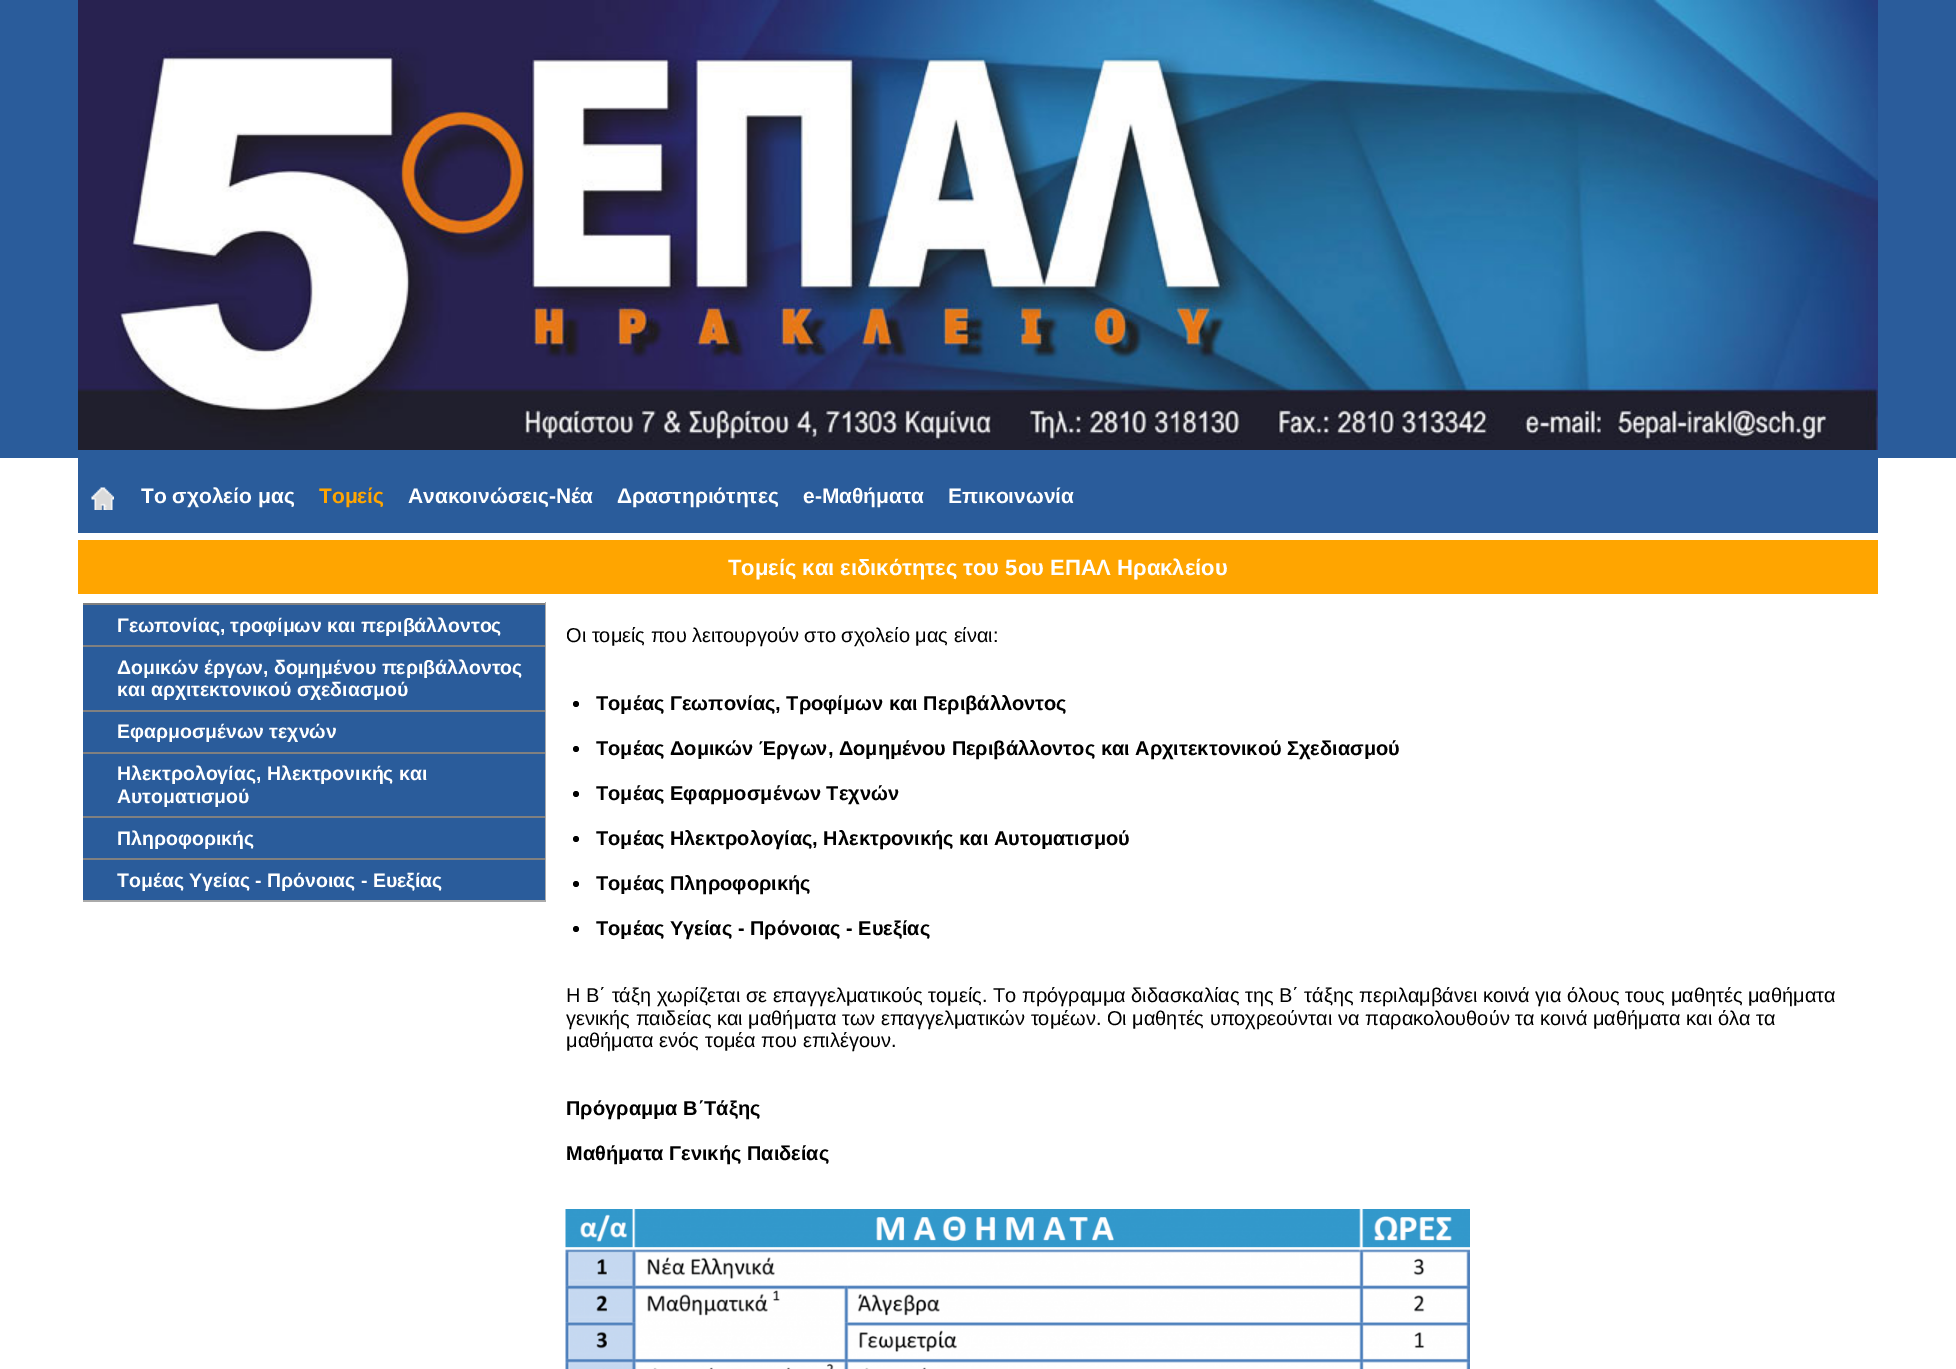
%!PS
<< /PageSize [1956 1369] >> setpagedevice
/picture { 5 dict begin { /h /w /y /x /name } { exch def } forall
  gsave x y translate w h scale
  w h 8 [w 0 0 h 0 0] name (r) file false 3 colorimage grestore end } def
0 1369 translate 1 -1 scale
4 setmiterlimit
1 setgray
0 0 1956 1369 rectfill
0.165 0.361 0.608 setrgbcolor
0 0 1956 458 rectfill
(img1.rgb) 78 0 1800 450 picture
78 458 1800 75 rectfill
(img2.rgb) 91 487 23 23 picture
/LiberationSans-Bold [21 0 0 -21 0 0] selectfont
1 setgray
141 503 moveto (Το σχολείο μας) show
1 0.647 0 setrgbcolor
319 503 moveto (Τομείς) show
1 setgray
408 503 moveto (Ανακοινώσεις-Νέα) show
617 503 moveto (Δραστηριότητες) show
803 503 moveto (e-Μαθήματα) show
948 503 moveto (Επικοινωνία) show
1 0.647 0 setrgbcolor
78 540 1800 54 rectfill
/LiberationSans-Bold [22 0 0 -22 0 0] selectfont
1 setgray
728 575 moveto (Τομείς και ειδικότητες του 5ου ΕΠΑΛ Ηρακλείου) show
0.667 setgray
545 602 1 300 rectfill
81 900 465 2 rectfill
1 setgray
81 900 2 2 rectfill
0.165 0.361 0.608 setrgbcolor
83 605 462 40 rectfill
0.502 setgray
83 603 462 2 rectfill
/LiberationSans-Bold [19.5 0 0 -19.5 0 0] selectfont
1 setgray
117 632 moveto (Γεωπονίας, τροφίμων και περιβάλλοντος) show
0.165 0.361 0.608 setrgbcolor
83 647 462 63 rectfill
0.502 setgray
83 645 462 2 rectfill
1 setgray
117 674 moveto (Δομικών έργων, δομημένου περιβάλλοντος) show
117 696 moveto (και αρχιτεκτονικού σχεδιασμού) show
0.165 0.361 0.608 setrgbcolor
83 712 462 40 rectfill
0.502 setgray
83 710 462 2 rectfill
1 setgray
117 738 moveto (Εφαρμοσμένων τεχνών) show
0.165 0.361 0.608 setrgbcolor
83 754 462 62 rectfill
0.502 setgray
83 752 462 2 rectfill
1 setgray
117 780 moveto (Ηλεκτρολογίας, Ηλεκτρονικής και) show
117 803 moveto (Αυτοματισμού) show
0.165 0.361 0.608 setrgbcolor
83 818 462 40 rectfill
0.502 setgray
83 816 462 2 rectfill
1 setgray
117 845 moveto (Πληροφορικής) show
0.165 0.361 0.608 setrgbcolor
83 860 462 40 rectfill
0.502 setgray
83 858 462 2 rectfill
1 setgray
117 887 moveto (Τομέας Υγείας - Πρόνοιας - Ευεξίας) show
/LiberationSans-Regular [20 0 0 -20 0 0] selectfont
0 setgray
566 642 moveto (Οι τομείς που λειτουργούν στο σχολείο μας είναι:) show
newpath 576 704 3 0 360 arc closepath fill
/LiberationSans-Bold [20 0 0 -20 0 0] selectfont
596 710 moveto (Τομέας Γεωπονίας, Τροφίμων και Περιβάλλοντος) show
newpath 576 749 3 0 360 arc closepath fill
596 755 moveto (Τομέας Δομικών Έργων, Δομημένου Περιβάλλοντος και Αρχιτεκτονικού Σχεδιασμού) show
newpath 576 794 3 0 360 arc closepath fill
596 800 moveto (Τομέας Εφαρμοσμένων Τεχνών) show
newpath 576 839 3 0 360 arc closepath fill
596 845 moveto (Τομέας Ηλεκτρολογίας, Ηλεκτρονικής και Αυτοματισμού) show
newpath 576 884 3 0 360 arc closepath fill
596 890 moveto (Τομέας Πληροφορικής) show
newpath 576 929 3 0 360 arc closepath fill
596 935 moveto (Τομέας Υγείας - Πρόνοιας - Ευεξίας) show
/LiberationSans-Regular [20 0 0 -20 0 0] selectfont
566 1002 moveto (Η Β΄ τάξη χωρίζεται σε επαγγελματικούς τομείς. Το πρόγραμμα διδασκαλίας της Β΄ τάξης περιλαμβάνει κοινά για όλους τους μαθητές μαθήματα) show
566 1025 moveto (γενικής παιδείας και μαθήματα των επαγγελματικών τομέων. Οι μαθητές υποχρεούνται να παρακολουθούν τα κοινά μαθήματα και όλα τα) show
566 1047 moveto (μαθήματα ενός τομέα που επιλέγουν.) show
/LiberationSans-Bold [20 0 0 -20 0 0] selectfont
566 1115 moveto (Πρόγραμμα Β΄Τάξης) show
566 1160 moveto (Μαθήματα Γενικής Παιδείας) show
(img3.rgb) 565 1209 905 160 picture
showpage
